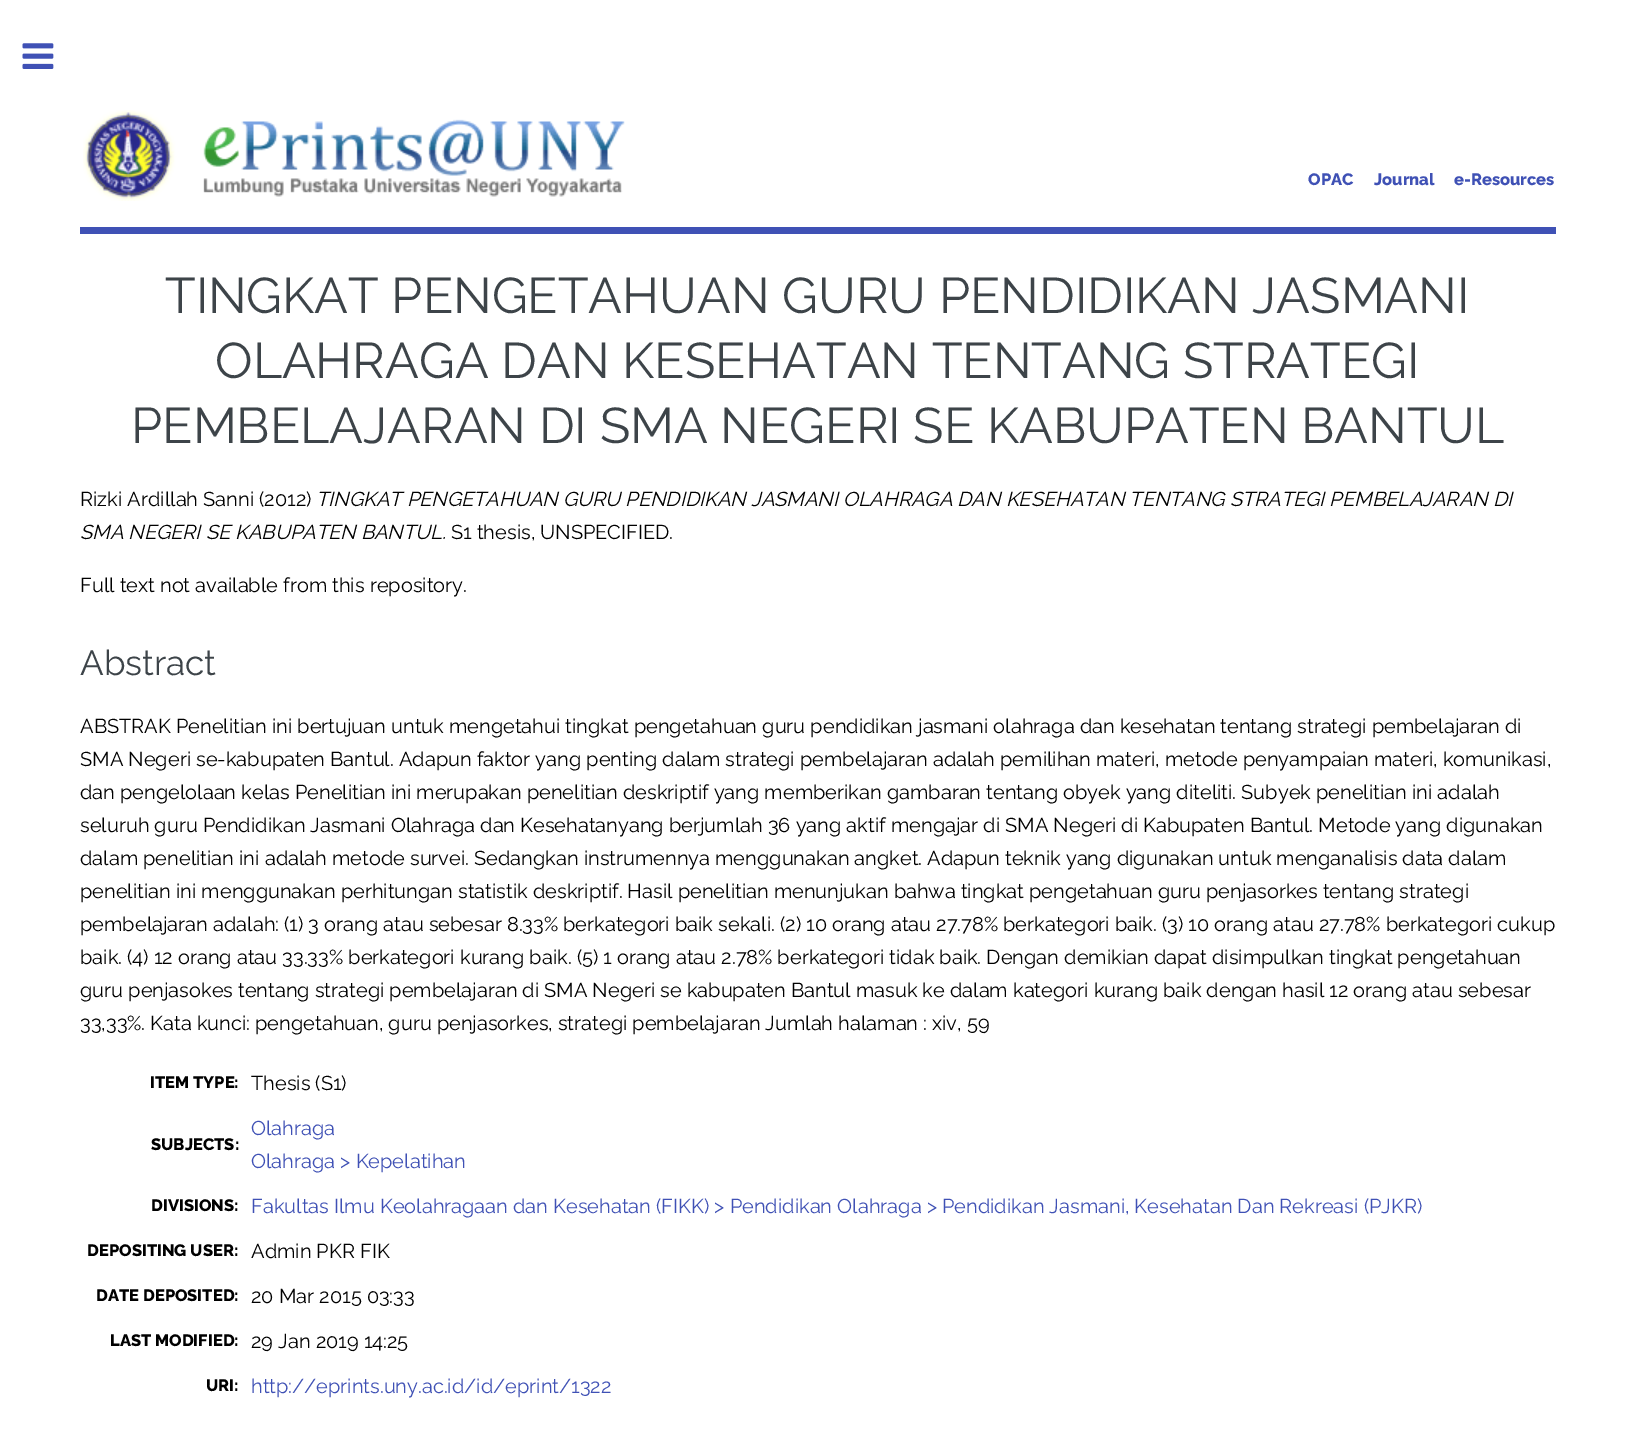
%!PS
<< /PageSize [1634 1447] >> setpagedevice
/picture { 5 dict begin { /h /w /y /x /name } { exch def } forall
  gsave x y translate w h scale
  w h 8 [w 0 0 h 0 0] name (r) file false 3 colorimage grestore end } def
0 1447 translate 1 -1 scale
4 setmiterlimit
1 setgray
0 0 1634 1447 rectfill
(img1.rgb) 22 43 32 26 picture
0.247 0.318 0.71 setrgbcolor
80 227 1476 7 rectfill
(img2.rgb) 83 110 542 91 picture
/Raleway-ExtraBold [16.5 0 0 -16.5 0 0] selectfont
1308 185 moveto (OPAC) show
1374 185 moveto (Journal) show
1454 185 moveto (e-Resources) show
/Raleway-Regular [50 0 0 -50 0 0] selectfont
0.239 0.267 0.286 setrgbcolor
165 313 moveto (TINGKAT PENGETAHUAN GURU PENDIDIKAN JASMANI) show
215 378 moveto (OLAHRAGA DAN KESEHATAN TENTANG STRATEGI) show
131 443 moveto (PEMBELAJARAN DI SMA NEGERI SE KABUPATEN BANTUL) show
/Raleway-Regular [20 0 0 -20 0 0] selectfont
0 setgray
80 506 moveto (Rizki Ardillah Sanni \(2012\)) show
/Raleway-Italic [20 0 0 -20 0 0] selectfont
316 506 moveto (TINGKAT PENGETAHUAN GURU PENDIDIKAN JASMANI OLAHRAGA DAN KESEHATAN TENTANG STRATEGI PEMBELAJARAN DI) show
80 539 moveto (SMA NEGERI SE KABUPATEN BANTUL.) show
/Raleway-Regular [20 0 0 -20 0 0] selectfont
451 539 moveto (S1 thesis, UNSPECIFIED.) show
80 592 moveto (Full text not available from this repository.) show
/Raleway-Regular [35 0 0 -35 0 0] selectfont
0.239 0.267 0.286 setrgbcolor
80 675 moveto (Abstract) show
/Raleway-Regular [20 0 0 -20 0 0] selectfont
0 setgray
80 733 moveto (ABSTRAK Penelitian ini bertujuan untuk mengetahui tingkat pengetahuan guru pendidikan jasmani olahraga dan kesehatan tentang strategi pembelajaran di) show
80 766 moveto (SMA Negeri se-kabupaten Bantul. Adapun faktor yang penting dalam strategi pembelajaran adalah pemilihan materi, metode penyampaian materi, komunikasi,) show
80 799 moveto (dan pengelolaan kelas Penelitian ini merupakan penelitian deskriptif yang memberikan gambaran tentang obyek yang diteliti. Subyek penelitian ini adalah) show
80 832 moveto (seluruh guru Pendidikan Jasmani Olahraga dan Kesehatanyang berjumlah 36 yang aktif mengajar di SMA Negeri di Kabupaten Bantul. Metode yang digunakan) show
80 865 moveto (dalam penelitian ini adalah metode survei. Sedangkan instrumennya menggunakan angket. Adapun) show
1005 865 moveto (teknik yang digunakan untuk menganalisis data dalam) show
80 898 moveto (penelitian ini menggunakan perhitungan statistik deskriptif. Hasil penelitian menunjukan bahwa tingkat pengetahuan guru penjasorkes tentang strategi) show
80 931 moveto (pembelajaran adalah: \(1\) 3 orang atau sebesar 8.33% berkategori baik sekali. \(2\) 10 orang atau 27.78% berkategori baik. \(3\) 10 orang atau 27.78% berkategori cukup) show
80 964 moveto (baik. \(4\) 12 orang atau 33.33% berkategori kurang baik. \(5\) 1 orang atau 2.78% berkategori tidak baik. Dengan demikian dapat disimpulkan tingkat pengetahuan) show
80 997 moveto (guru penjasokes tentang strategi pembelajaran di SMA Negeri se kabupaten Bantul masuk ke dalam kategori kurang baik dengan hasil 12 orang atau sebesar) show
80 1030 moveto (33,33%. Kata kunci: pengetahuan, guru penjasorkes, strategi pembelajaran Jumlah halaman : xiv, 59) show
/Raleway-ExtraBold [16.5 0 0 -16.5 0 0] selectfont
150 1088 moveto (ITEM TYPE:) show
/Raleway-Regular [20 0 0 -20 0 0] selectfont
251 1090 moveto (Thesis \(S1\)) show
/Raleway-ExtraBold [16.5 0 0 -16.5 0 0] selectfont
151 1150 moveto (SUBJECTS:) show
/Raleway-Regular [20 0 0 -20 0 0] selectfont
0.247 0.318 0.71 setrgbcolor
251 1135 moveto (Olahraga) show
251 1168 moveto (Olahraga > Kepelatihan) show
/Raleway-ExtraBold [16.5 0 0 -16.5 0 0] selectfont
0 setgray
151 1211 moveto (DIVISIONS:) show
/Raleway-Regular [20 0 0 -20 0 0] selectfont
0.247 0.318 0.71 setrgbcolor
251 1213 moveto (Fakultas Ilmu Keolahragaan dan Kesehatan \(FIKK\) > Pendidikan Olahraga > Pendidikan Jasmani, Kesehatan Dan Rekreasi \(PJKR\)) show
/Raleway-ExtraBold [16.5 0 0 -16.5 0 0] selectfont
0 setgray
87 1256 moveto (DEPOSITING USER:) show
/Raleway-Regular [20 0 0 -20 0 0] selectfont
251 1258 moveto (Admin PKR FIK) show
/Raleway-ExtraBold [16.5 0 0 -16.5 0 0] selectfont
96 1301 moveto (DATE DEPOSITED:) show
/Raleway-Regular [20 0 0 -20 0 0] selectfont
251 1303 moveto (20 Mar 2015 03:33) show
/Raleway-ExtraBold [16.5 0 0 -16.5 0 0] selectfont
110 1346 moveto (LAST MODIFIED:) show
/Raleway-Regular [20 0 0 -20 0 0] selectfont
251 1348 moveto (29 Jan 2019 14:25) show
/Raleway-ExtraBold [16.5 0 0 -16.5 0 0] selectfont
206 1391 moveto (URI:) show
/Raleway-Regular [20 0 0 -20 0 0] selectfont
0.247 0.318 0.71 setrgbcolor
251 1393 moveto (http://eprints.uny.ac.id/id/eprint/1322) show
showpage
